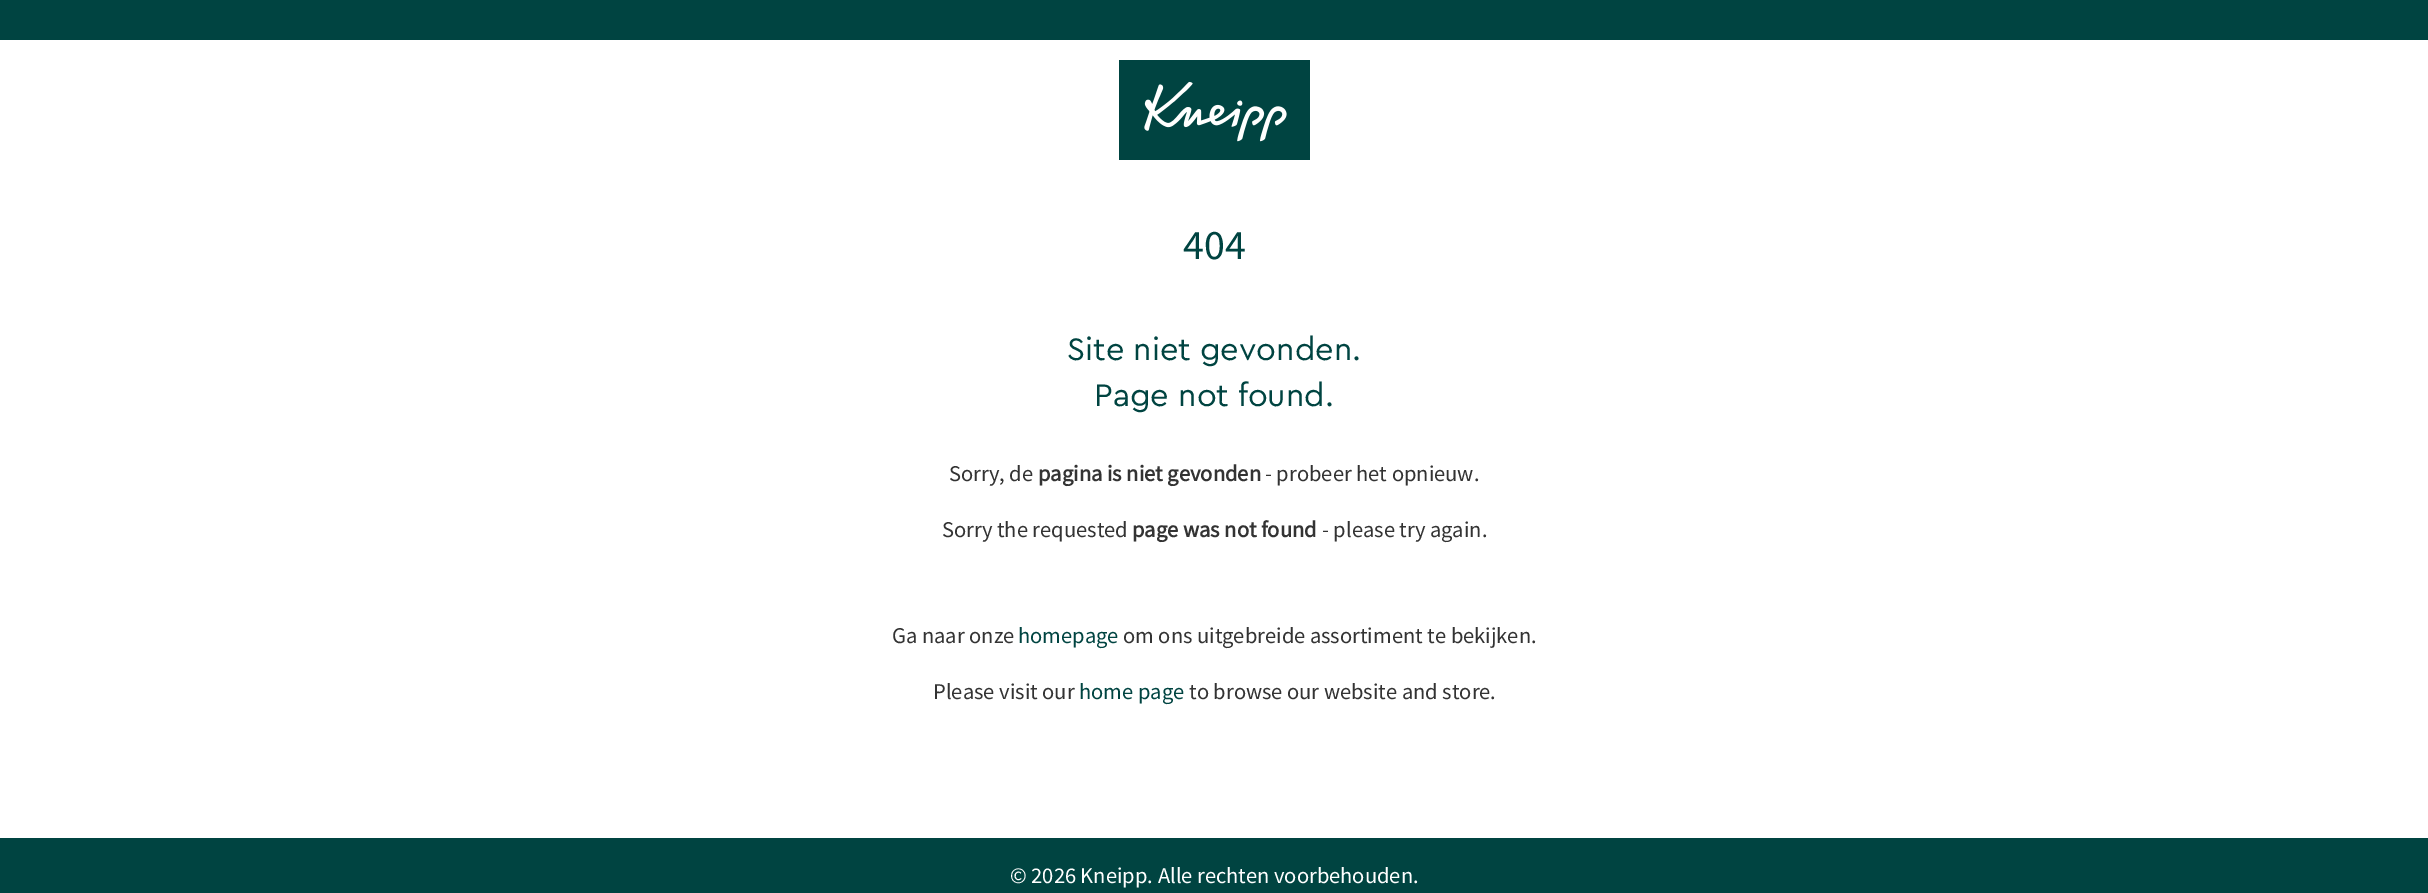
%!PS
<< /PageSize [2428 893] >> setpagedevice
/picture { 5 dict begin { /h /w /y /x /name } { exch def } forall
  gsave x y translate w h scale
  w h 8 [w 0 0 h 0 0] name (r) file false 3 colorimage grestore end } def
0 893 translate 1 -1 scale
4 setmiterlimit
1 setgray
0 0 2428 893 rectfill
0 0.267 0.255 setrgbcolor
0 0 2428 40 rectfill
(img1.rgb) 1119 60 191 100 picture
/SourceSansPro-Regular [42 0 0 -42 0 0] selectfont
1183 259 moveto (404) show
/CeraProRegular-Regular [32.5 0 0 -32.5 0 0] selectfont
1067 360 moveto (Site niet gevonden.) show
1094 406 moveto (Page not found.) show
/SourceSansPro-Regular [22.5 0 0 -22.5 0 0] selectfont
0.2 setgray
949 481 moveto (Sorry, de) show
/SourceSansPro-Bold [22.5 0 0 -22.5 0 0] selectfont
1038 481 moveto (pagina is niet gevonden) show
/SourceSansPro-Regular [22.5 0 0 -22.5 0 0] selectfont
1265 481 moveto (- probeer het opnieuw.) show
942 537 moveto (Sorry the requested) show
/SourceSansPro-Bold [22.5 0 0 -22.5 0 0] selectfont
1132 537 moveto (page was not found) show
/SourceSansPro-Regular [22.5 0 0 -22.5 0 0] selectfont
1322 537 moveto (- please try again.) show
892 643 moveto (Ga naar onze) show
0 0.267 0.255 setrgbcolor
1018 643 moveto (homepage) show
0.2 setgray
1123 643 moveto (om ons uitgebreide assortiment te bekijken.) show
933 699 moveto (Please visit our) show
0 0.267 0.255 setrgbcolor
1079 699 moveto (home page) show
0.2 setgray
1189 699 moveto (to browse our website and store.) show
0 0.267 0.255 setrgbcolor
0 838 2428 55 rectfill
1 setgray
1010 883 moveto (© 2026 Kneipp. Alle rechten voorbehouden.) show
showpage
